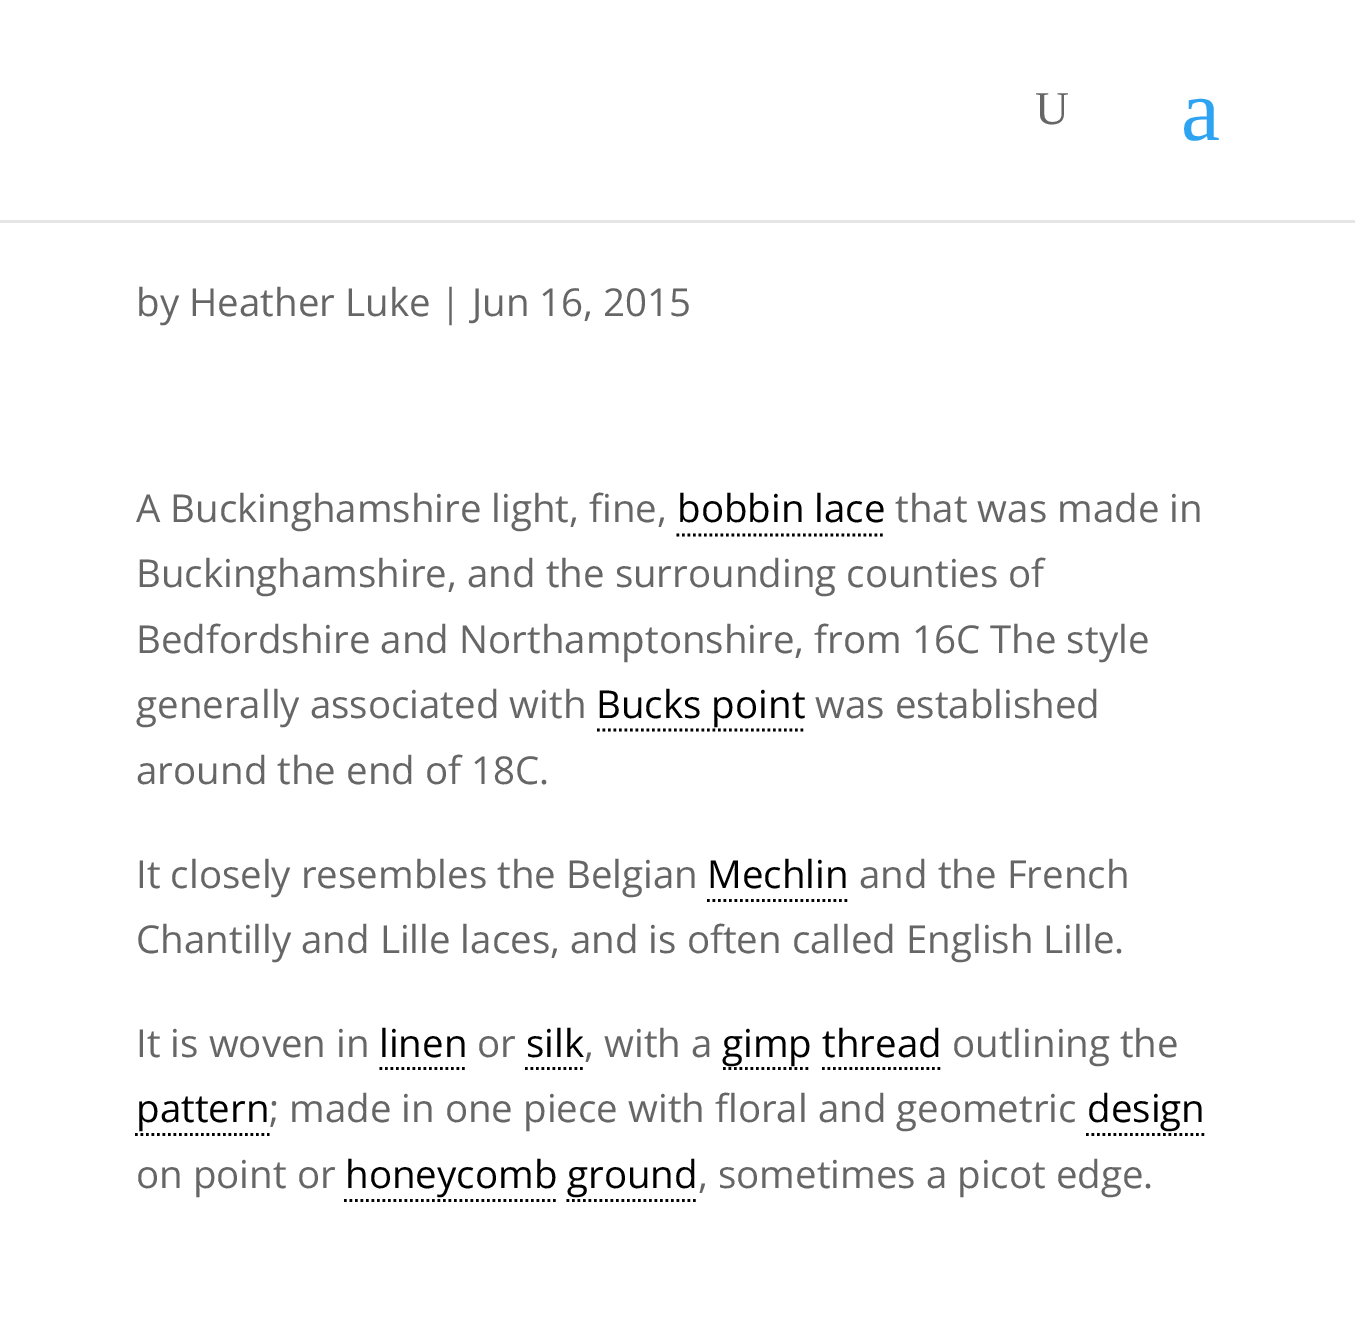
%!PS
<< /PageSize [1355 1322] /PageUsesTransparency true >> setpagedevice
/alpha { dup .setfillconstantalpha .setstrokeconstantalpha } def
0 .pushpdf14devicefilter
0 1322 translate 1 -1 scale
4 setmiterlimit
1 setgray
0 0 1355 1322 rectfill
0.1 alpha
0 setgray
newpath 0 220 moveto 0 223 lineto 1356 223 lineto 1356 3 lineto 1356 220 lineto closepath fill
/LiberationSerif-Regular [47 0 0 -47 0 0] selectfont
1 alpha
0.4 setgray
1035 124 moveto (U) show
/LiberationSerif-Regular [88 0 0 -88 0 0] selectfont
0.18 0.639 0.949 setrgbcolor
1181 140 moveto (a) show
/OpenSans-Regular [38.5 0 0 -38.5 0 0] selectfont
0.4 setgray
136 316 moveto (by Heather Luke | Jun 16, 2015) show
136 522 moveto (A Buckinghamshire light, fine,) show
0 setgray
677 522 moveto (bobbin lace) show
2.8 setlinewidth
[2.75 2.75] 0 setdash
newpath 676.5 535 moveto 885.5 535 lineto stroke
0.4 setgray
895 522 moveto (that was made in) show
136 587 moveto (Buckinghamshire, and the surrounding counties of) show
136 653 moveto (Bedfordshire and Northamptonshire, from 16C The style) show
136 718 moveto (generally associated with) show
0 setgray
596 718 moveto (Bucks point) show
newpath 597 730 moveto 806 730 lineto stroke
0.4 setgray
815 718 moveto (was established) show
136 784 moveto (around the end of 18C.) show
136 888 moveto (It closely resembles the Belgian) show
0 setgray
707 888 moveto (Mechlin) show
newpath 707 900.5 moveto 850 900.5 lineto stroke
0.4 setgray
859 888 moveto (and the French) show
136 953 moveto (Chantilly and Lille laces, and is often called English Lille.) show
136 1057 moveto (It is woven in) show
0 setgray
379 1057 moveto (linen) show
newpath 379.5 1068.5 moveto 467.5 1068.5 lineto stroke
0.4 setgray
477 1057 moveto (or) show
0 setgray
526 1057 moveto (silk) show
newpath 525 1068.5 moveto 583 1068.5 lineto stroke
0.4 setgray
584 1057 moveto (, with a) show
0 setgray
722 1057 moveto (gimp thread) show
newpath 723 1068.5 moveto 811 1068.5 lineto stroke
0.4 setgray
952 1057 moveto (outlining the) show
0 setgray
newpath 822 1068.5 moveto 943 1068.5 lineto stroke
136 1122 moveto (pattern) show
newpath 135 1134.5 moveto 269.5 1134.5 lineto stroke
0.4 setgray
269 1122 moveto (; made in one piece with floral and geometric) show
0 setgray
1087 1122 moveto (design) show
newpath 1086 1134.5 moveto 1204.5 1134.5 lineto stroke
0.4 setgray
136 1188 moveto (on point or) show
0 setgray
345 1188 moveto (honeycomb ground) show
newpath 344 1200.5 moveto 558 1200.5 lineto stroke
0.4 setgray
698 1188 moveto (, sometimes a picot edge.) show
0 setgray
newpath 566.5 1200.5 moveto 698.5 1200.5 lineto stroke
.poppdf14devicefilter showpage
